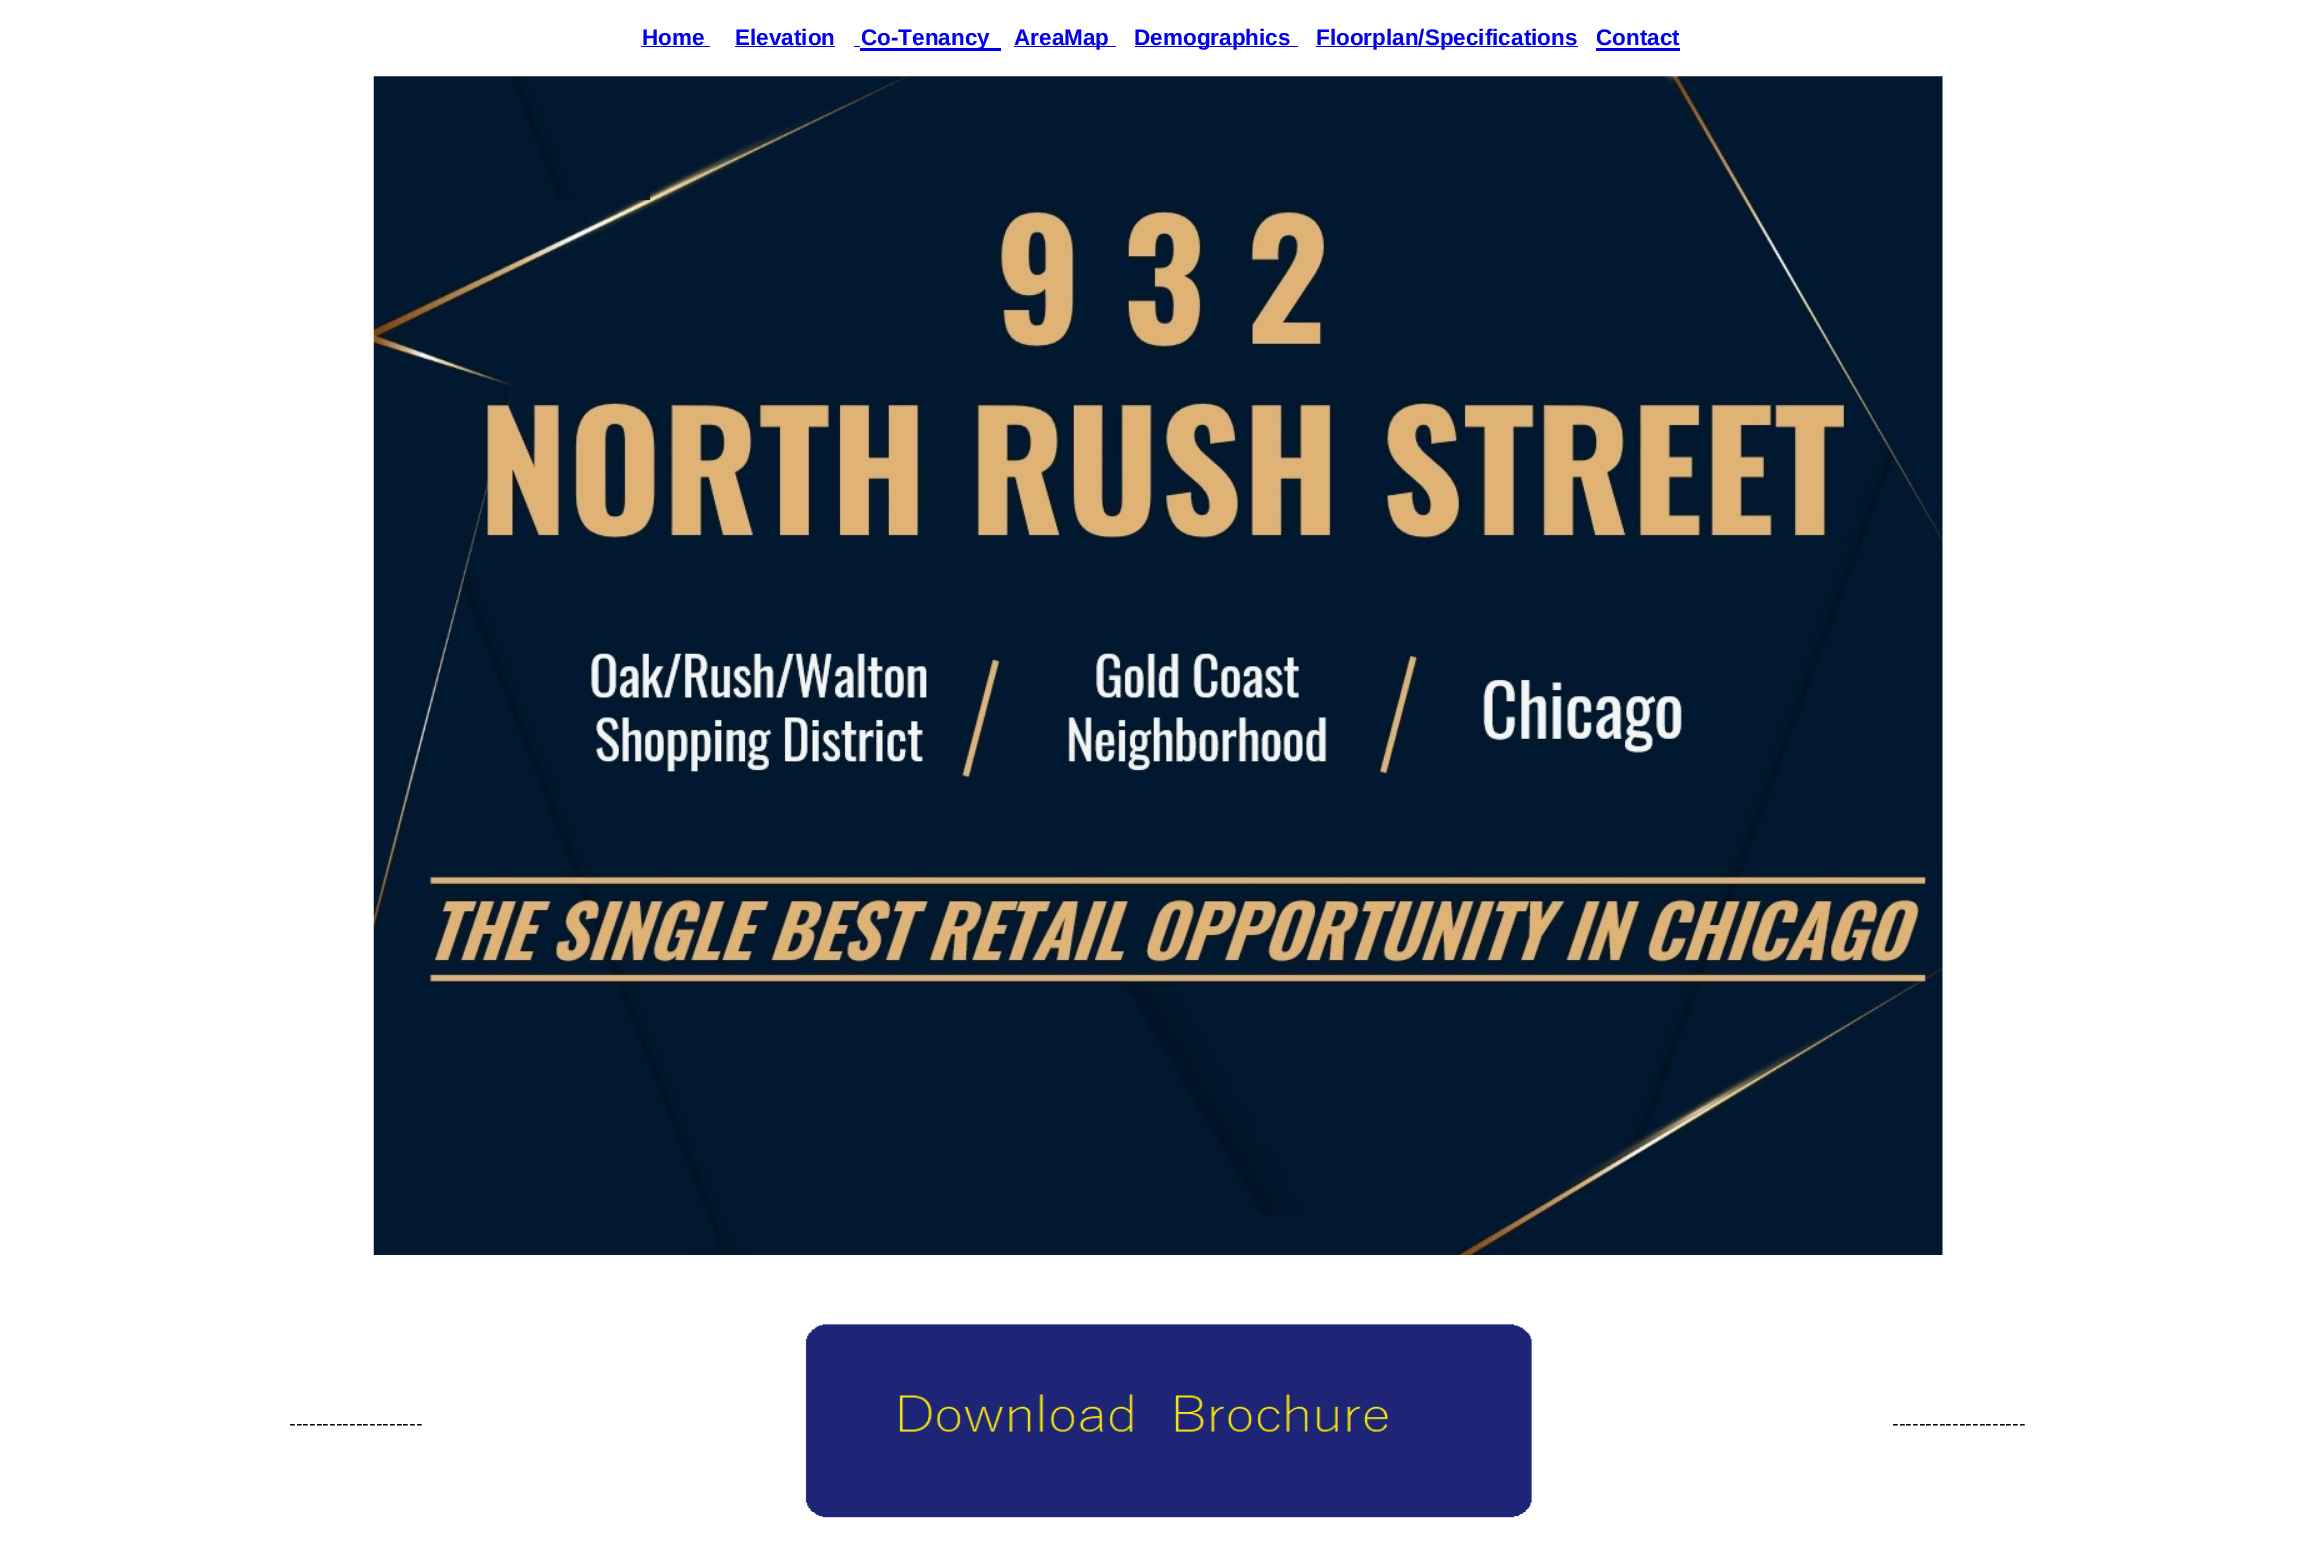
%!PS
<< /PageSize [2314 1568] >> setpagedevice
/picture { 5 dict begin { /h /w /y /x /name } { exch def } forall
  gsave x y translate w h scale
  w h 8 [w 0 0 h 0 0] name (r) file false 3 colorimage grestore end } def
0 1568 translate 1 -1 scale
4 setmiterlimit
1 setgray
0 0 2314 1568 rectfill
/LiberationSans-Bold [22.5 0 0 -22.5 0 0] selectfont
0 0 0.933 setrgbcolor
642 45 moveto (Home) show
641 46 69 1 rectfill
735 45 moveto (Elevation) show
735 46 100 1 rectfill
860 48 129 3 rectfill
861 45 moveto (Co-Tenancy) show
854 46 6 1 rectfill
989 48 12 3 rectfill
1014 46 102 1 rectfill
1014 45 moveto (AreaMap) show
1135 46 163 1 rectfill
1134 45 moveto (Demographics) show
1316 46 262 1 rectfill
1316 45 moveto (Floorplan/Specifications) show
1596 45 moveto (Contact) show
1596 48 84 3 rectfill
(img1.rgb) 373 76 1570 1179 picture
/LiberationSans-Regular [20 0 0 -20 0 0] selectfont
0 setgray
289 1430 moveto (--------------------) show
(img2.rgb) 805 1324 727 194 picture
1892 1430 moveto (--------------------) show
showpage
